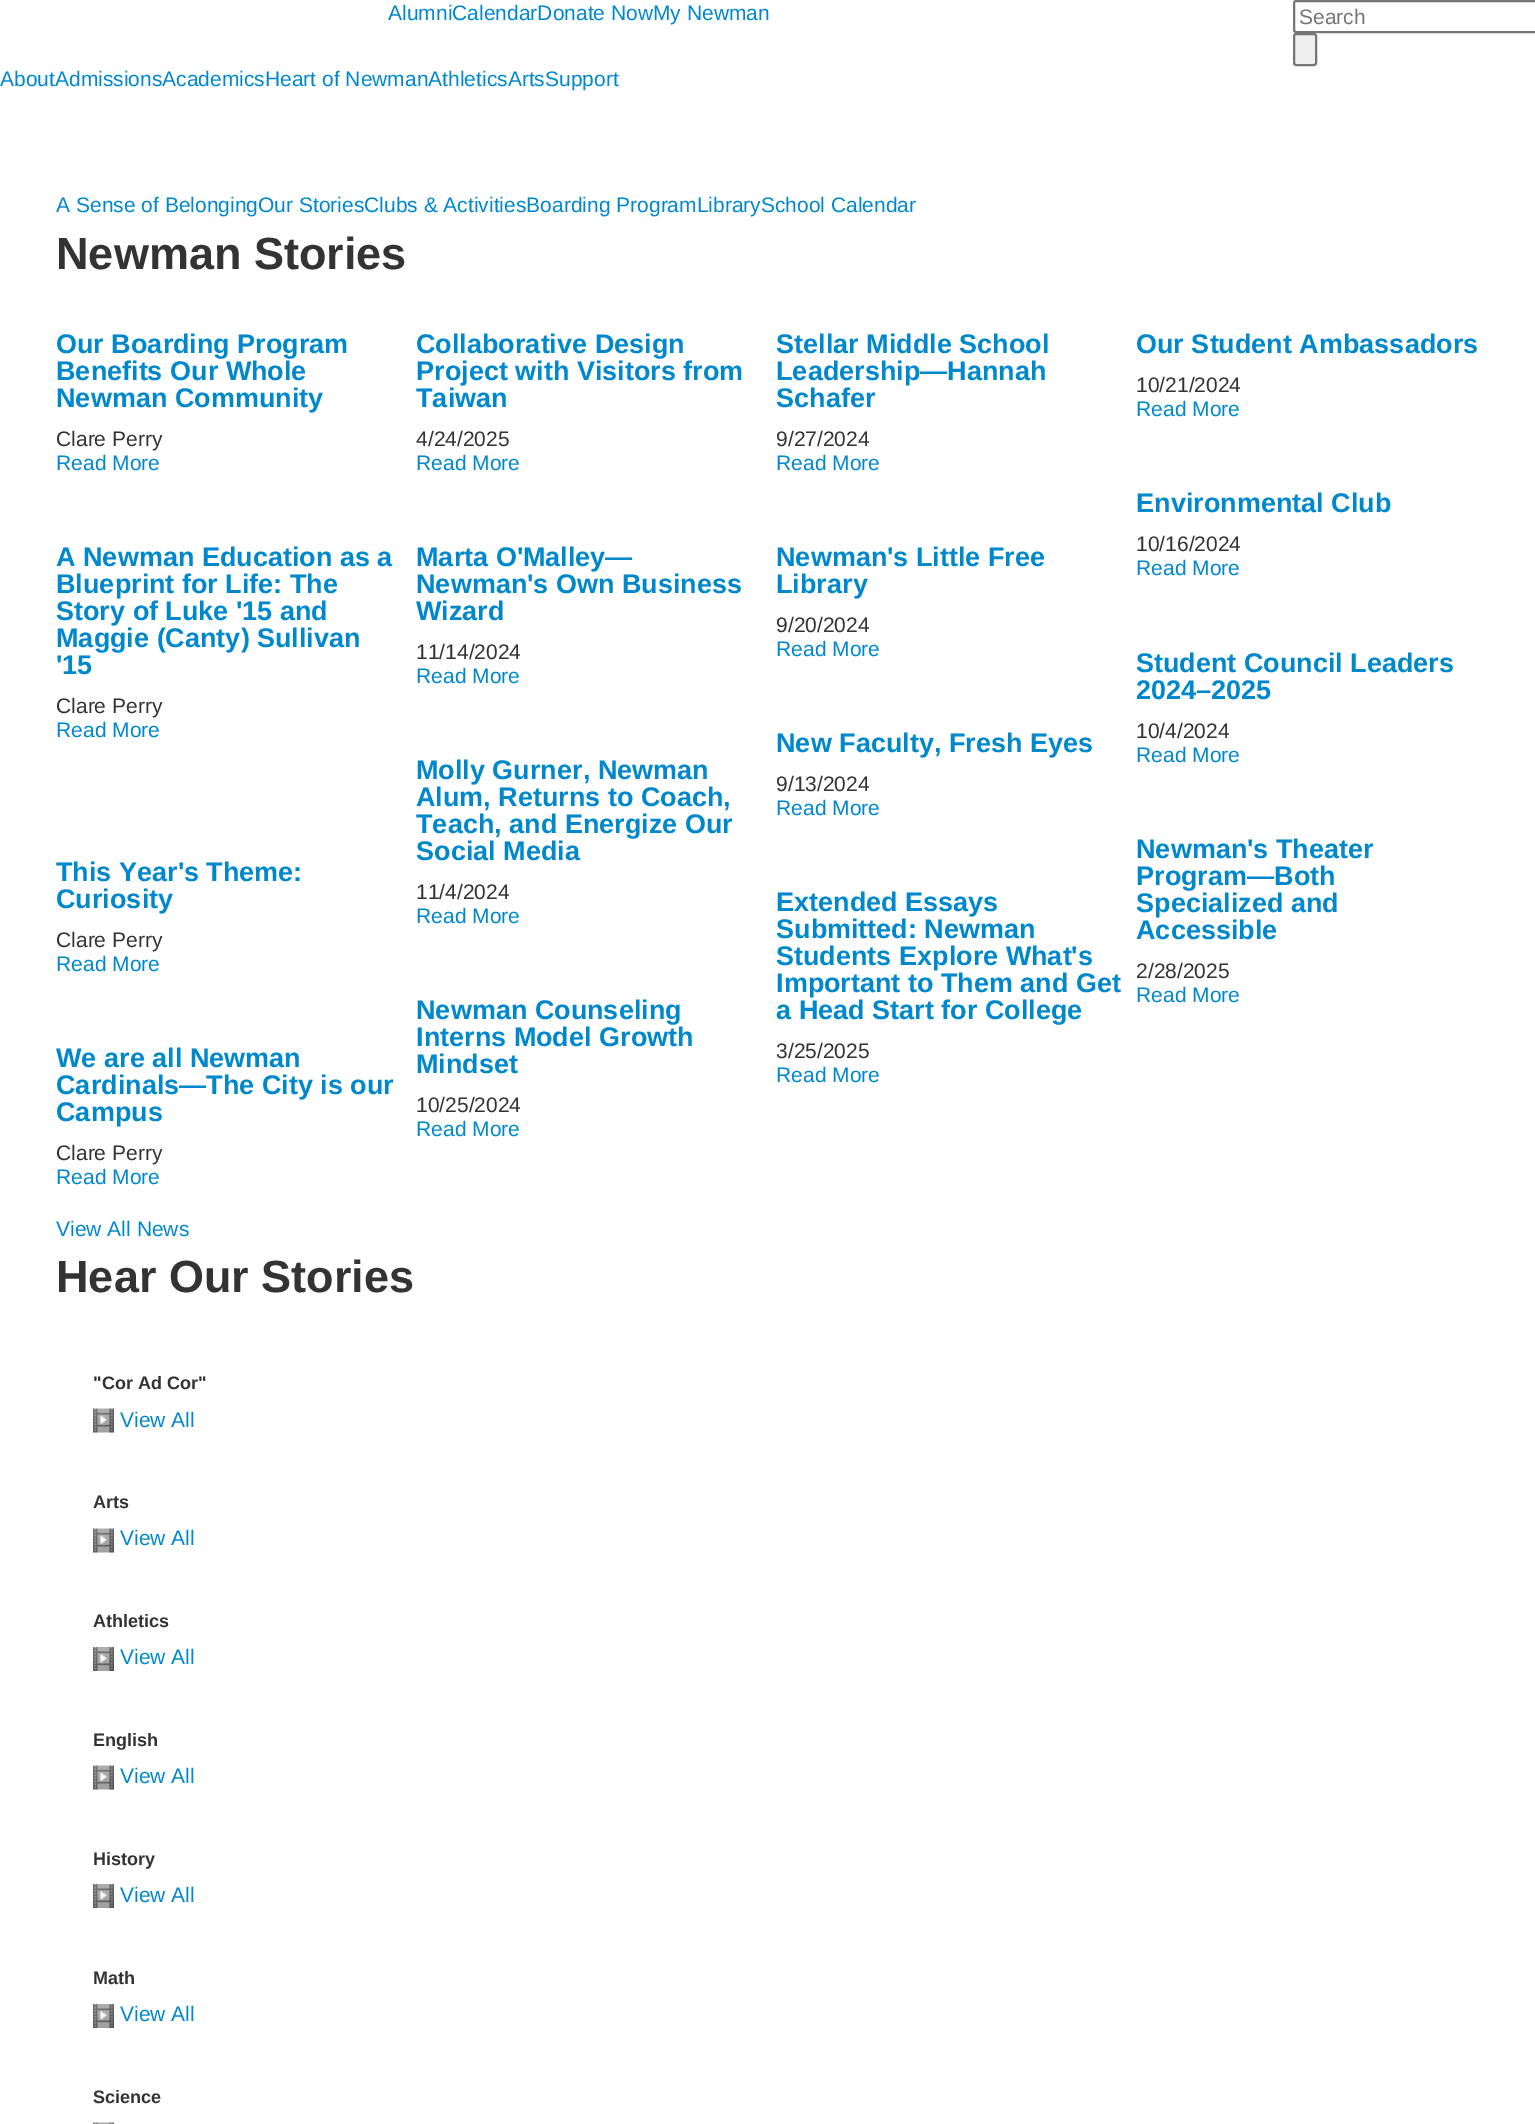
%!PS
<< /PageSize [1535 2124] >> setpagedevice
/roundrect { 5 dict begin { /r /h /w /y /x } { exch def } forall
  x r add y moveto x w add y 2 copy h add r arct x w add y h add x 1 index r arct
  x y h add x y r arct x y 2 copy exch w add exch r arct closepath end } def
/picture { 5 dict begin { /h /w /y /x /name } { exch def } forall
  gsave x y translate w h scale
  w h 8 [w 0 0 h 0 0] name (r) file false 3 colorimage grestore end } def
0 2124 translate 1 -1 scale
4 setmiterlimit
1 setgray
0 0 1535 2124 rectfill
/LiberationSans-Regular [21 0 0 -21 0 0] selectfont
0 0.533 0.8 setrgbcolor
388 20 moveto (AlumniCalendarDonate NowMy Newman) show
0.463 setgray
2 setlinewidth
1294 1 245 31 2 roundrect stroke
0.459 setgray
1299 24 moveto (Search) show
0.937 setgray
1294 34 22 31 2 roundrect gsave fill grestore
0.463 setgray
stroke
0 0.533 0.8 setrgbcolor
0 86 moveto (AboutAdmissionsAcademicsHeart of NewmanAthleticsArtsSupport) show
56 212 moveto (A Sense of BelongingOur StoriesClubs & ActivitiesBoarding ProgramLibrarySchool Calendar) show
/LiberationSans-Bold [45 0 0 -45 0 0] selectfont
0.2 setgray
56 269 moveto (Newman Stories) show
/LiberationSans-Bold [27 0 0 -27 0 0] selectfont
0 0.533 0.8 setrgbcolor
56 353 moveto (Our Boarding Program) show
56 380 moveto (Benefits Our Whole) show
56 407 moveto (Newman Community) show
/LiberationSans-Regular [21 0 0 -21 0 0] selectfont
0.2 setgray
56 446 moveto (Clare Perry) show
0 0.533 0.8 setrgbcolor
56 470 moveto (Read More) show
/LiberationSans-Bold [27 0 0 -27 0 0] selectfont
56 566 moveto (A Newman Education as a) show
56 593 moveto (Blueprint for Life: The) show
56 620 moveto (Story of Luke '15 and) show
56 647 moveto (Maggie \(Canty\) Sullivan) show
56 674 moveto ('15) show
/LiberationSans-Regular [21 0 0 -21 0 0] selectfont
0.2 setgray
56 713 moveto (Clare Perry) show
0 0.533 0.8 setrgbcolor
56 737 moveto (Read More) show
/LiberationSans-Bold [27 0 0 -27 0 0] selectfont
56 881 moveto (This Year's Theme:) show
56 908 moveto (Curiosity) show
/LiberationSans-Regular [21 0 0 -21 0 0] selectfont
0.2 setgray
56 947 moveto (Clare Perry) show
0 0.533 0.8 setrgbcolor
56 971 moveto (Read More) show
/LiberationSans-Bold [27 0 0 -27 0 0] selectfont
56 1067 moveto (We are all Newman) show
56 1094 moveto (Cardinals—The City is our) show
56 1121 moveto (Campus) show
/LiberationSans-Regular [21 0 0 -21 0 0] selectfont
0.2 setgray
56 1160 moveto (Clare Perry) show
0 0.533 0.8 setrgbcolor
56 1184 moveto (Read More) show
56 1236 moveto (View All News) show
/LiberationSans-Bold [27 0 0 -27 0 0] selectfont
416 353 moveto (Collaborative Design) show
416 380 moveto (Project with Visitors from) show
416 407 moveto (Taiwan) show
/LiberationSans-Regular [21 0 0 -21 0 0] selectfont
0.2 setgray
416 446 moveto (4/24/2025) show
0 0.533 0.8 setrgbcolor
416 470 moveto (Read More) show
/LiberationSans-Bold [27 0 0 -27 0 0] selectfont
416 566 moveto (Marta O'Malley—) show
416 593 moveto (Newman's Own Business) show
416 620 moveto (Wizard) show
/LiberationSans-Regular [21 0 0 -21 0 0] selectfont
0.2 setgray
416 659 moveto (11/14/2024) show
0 0.533 0.8 setrgbcolor
416 683 moveto (Read More) show
/LiberationSans-Bold [27 0 0 -27 0 0] selectfont
416 779 moveto (Molly Gurner, Newman) show
416 806 moveto (Alum, Returns to Coach,) show
416 833 moveto (Teach, and Energize Our) show
416 860 moveto (Social Media) show
/LiberationSans-Regular [21 0 0 -21 0 0] selectfont
0.2 setgray
416 899 moveto (11/4/2024) show
0 0.533 0.8 setrgbcolor
416 923 moveto (Read More) show
/LiberationSans-Bold [27 0 0 -27 0 0] selectfont
416 1019 moveto (Newman Counseling) show
416 1046 moveto (Interns Model Growth) show
416 1073 moveto (Mindset) show
/LiberationSans-Regular [21 0 0 -21 0 0] selectfont
0.2 setgray
416 1112 moveto (10/25/2024) show
0 0.533 0.8 setrgbcolor
416 1136 moveto (Read More) show
/LiberationSans-Bold [27 0 0 -27 0 0] selectfont
776 353 moveto (Stellar Middle School) show
776 380 moveto (Leadership—Hannah) show
776 407 moveto (Schafer) show
/LiberationSans-Regular [21 0 0 -21 0 0] selectfont
0.2 setgray
776 446 moveto (9/27/2024) show
0 0.533 0.8 setrgbcolor
776 470 moveto (Read More) show
/LiberationSans-Bold [27 0 0 -27 0 0] selectfont
776 566 moveto (Newman's Little Free) show
776 593 moveto (Library) show
/LiberationSans-Regular [21 0 0 -21 0 0] selectfont
0.2 setgray
776 632 moveto (9/20/2024) show
0 0.533 0.8 setrgbcolor
776 656 moveto (Read More) show
/LiberationSans-Bold [27 0 0 -27 0 0] selectfont
776 752 moveto (New Faculty, Fresh Eyes) show
/LiberationSans-Regular [21 0 0 -21 0 0] selectfont
0.2 setgray
776 791 moveto (9/13/2024) show
0 0.533 0.8 setrgbcolor
776 815 moveto (Read More) show
/LiberationSans-Bold [27 0 0 -27 0 0] selectfont
776 911 moveto (Extended Essays) show
776 938 moveto (Submitted: Newman) show
776 965 moveto (Students Explore What's) show
776 992 moveto (Important to Them and Get) show
776 1019 moveto (a Head Start for College) show
/LiberationSans-Regular [21 0 0 -21 0 0] selectfont
0.2 setgray
776 1058 moveto (3/25/2025) show
0 0.533 0.8 setrgbcolor
776 1082 moveto (Read More) show
/LiberationSans-Bold [27 0 0 -27 0 0] selectfont
1136 353 moveto (Our Student Ambassadors) show
/LiberationSans-Regular [21 0 0 -21 0 0] selectfont
0.2 setgray
1136 392 moveto (10/21/2024) show
0 0.533 0.8 setrgbcolor
1136 416 moveto (Read More) show
/LiberationSans-Bold [27 0 0 -27 0 0] selectfont
1136 512 moveto (Environmental Club) show
/LiberationSans-Regular [21 0 0 -21 0 0] selectfont
0.2 setgray
1136 551 moveto (10/16/2024) show
0 0.533 0.8 setrgbcolor
1136 575 moveto (Read More) show
/LiberationSans-Bold [27 0 0 -27 0 0] selectfont
1136 672 moveto (Student Council Leaders) show
1136 699 moveto (2024–2025) show
/LiberationSans-Regular [21 0 0 -21 0 0] selectfont
0.2 setgray
1136 738 moveto (10/4/2024) show
0 0.533 0.8 setrgbcolor
1136 762 moveto (Read More) show
/LiberationSans-Bold [27 0 0 -27 0 0] selectfont
1136 858 moveto (Newman's Theater) show
1136 885 moveto (Program—Both) show
1136 912 moveto (Specialized and) show
1136 939 moveto (Accessible) show
/LiberationSans-Regular [21 0 0 -21 0 0] selectfont
0.2 setgray
1136 978 moveto (2/28/2025) show
0 0.533 0.8 setrgbcolor
1136 1002 moveto (Read More) show
/LiberationSans-Bold [45 0 0 -45 0 0] selectfont
0.2 setgray
56 1292 moveto (Hear Our Stories) show
/LiberationSans-Bold [18 0 0 -18 0 0] selectfont
93 1389 moveto ("Cor Ad Cor") show
(img1.rgb) 93 1408 21 25 picture
/LiberationSans-Regular [21 0 0 -21 0 0] selectfont
0 0.533 0.8 setrgbcolor
120 1427 moveto (View All) show
/LiberationSans-Bold [18 0 0 -18 0 0] selectfont
0.2 setgray
93 1508 moveto (Arts) show
(img1.rgb) 93 1528 21 25 picture
/LiberationSans-Regular [21 0 0 -21 0 0] selectfont
0 0.533 0.8 setrgbcolor
120 1545 moveto (View All) show
/LiberationSans-Bold [18 0 0 -18 0 0] selectfont
0.2 setgray
93 1627 moveto (Athletics) show
(img2.rgb) 93 1647 21 24 picture
/LiberationSans-Regular [21 0 0 -21 0 0] selectfont
0 0.533 0.8 setrgbcolor
120 1664 moveto (View All) show
/LiberationSans-Bold [18 0 0 -18 0 0] selectfont
0.2 setgray
93 1746 moveto (English) show
(img1.rgb) 93 1765 21 25 picture
/LiberationSans-Regular [21 0 0 -21 0 0] selectfont
0 0.533 0.8 setrgbcolor
120 1783 moveto (View All) show
/LiberationSans-Bold [18 0 0 -18 0 0] selectfont
0.2 setgray
93 1865 moveto (History) show
(img2.rgb) 93 1884 21 24 picture
/LiberationSans-Regular [21 0 0 -21 0 0] selectfont
0 0.533 0.8 setrgbcolor
120 1902 moveto (View All) show
/LiberationSans-Bold [18 0 0 -18 0 0] selectfont
0.2 setgray
93 1984 moveto (Math) show
(img2.rgb) 93 2004 21 24 picture
/LiberationSans-Regular [21 0 0 -21 0 0] selectfont
0 0.533 0.8 setrgbcolor
120 2021 moveto (View All) show
/LiberationSans-Bold [18 0 0 -18 0 0] selectfont
0.2 setgray
93 2103 moveto (Science) show
(img3.rgb) 93 2122 21 2 picture
showpage
